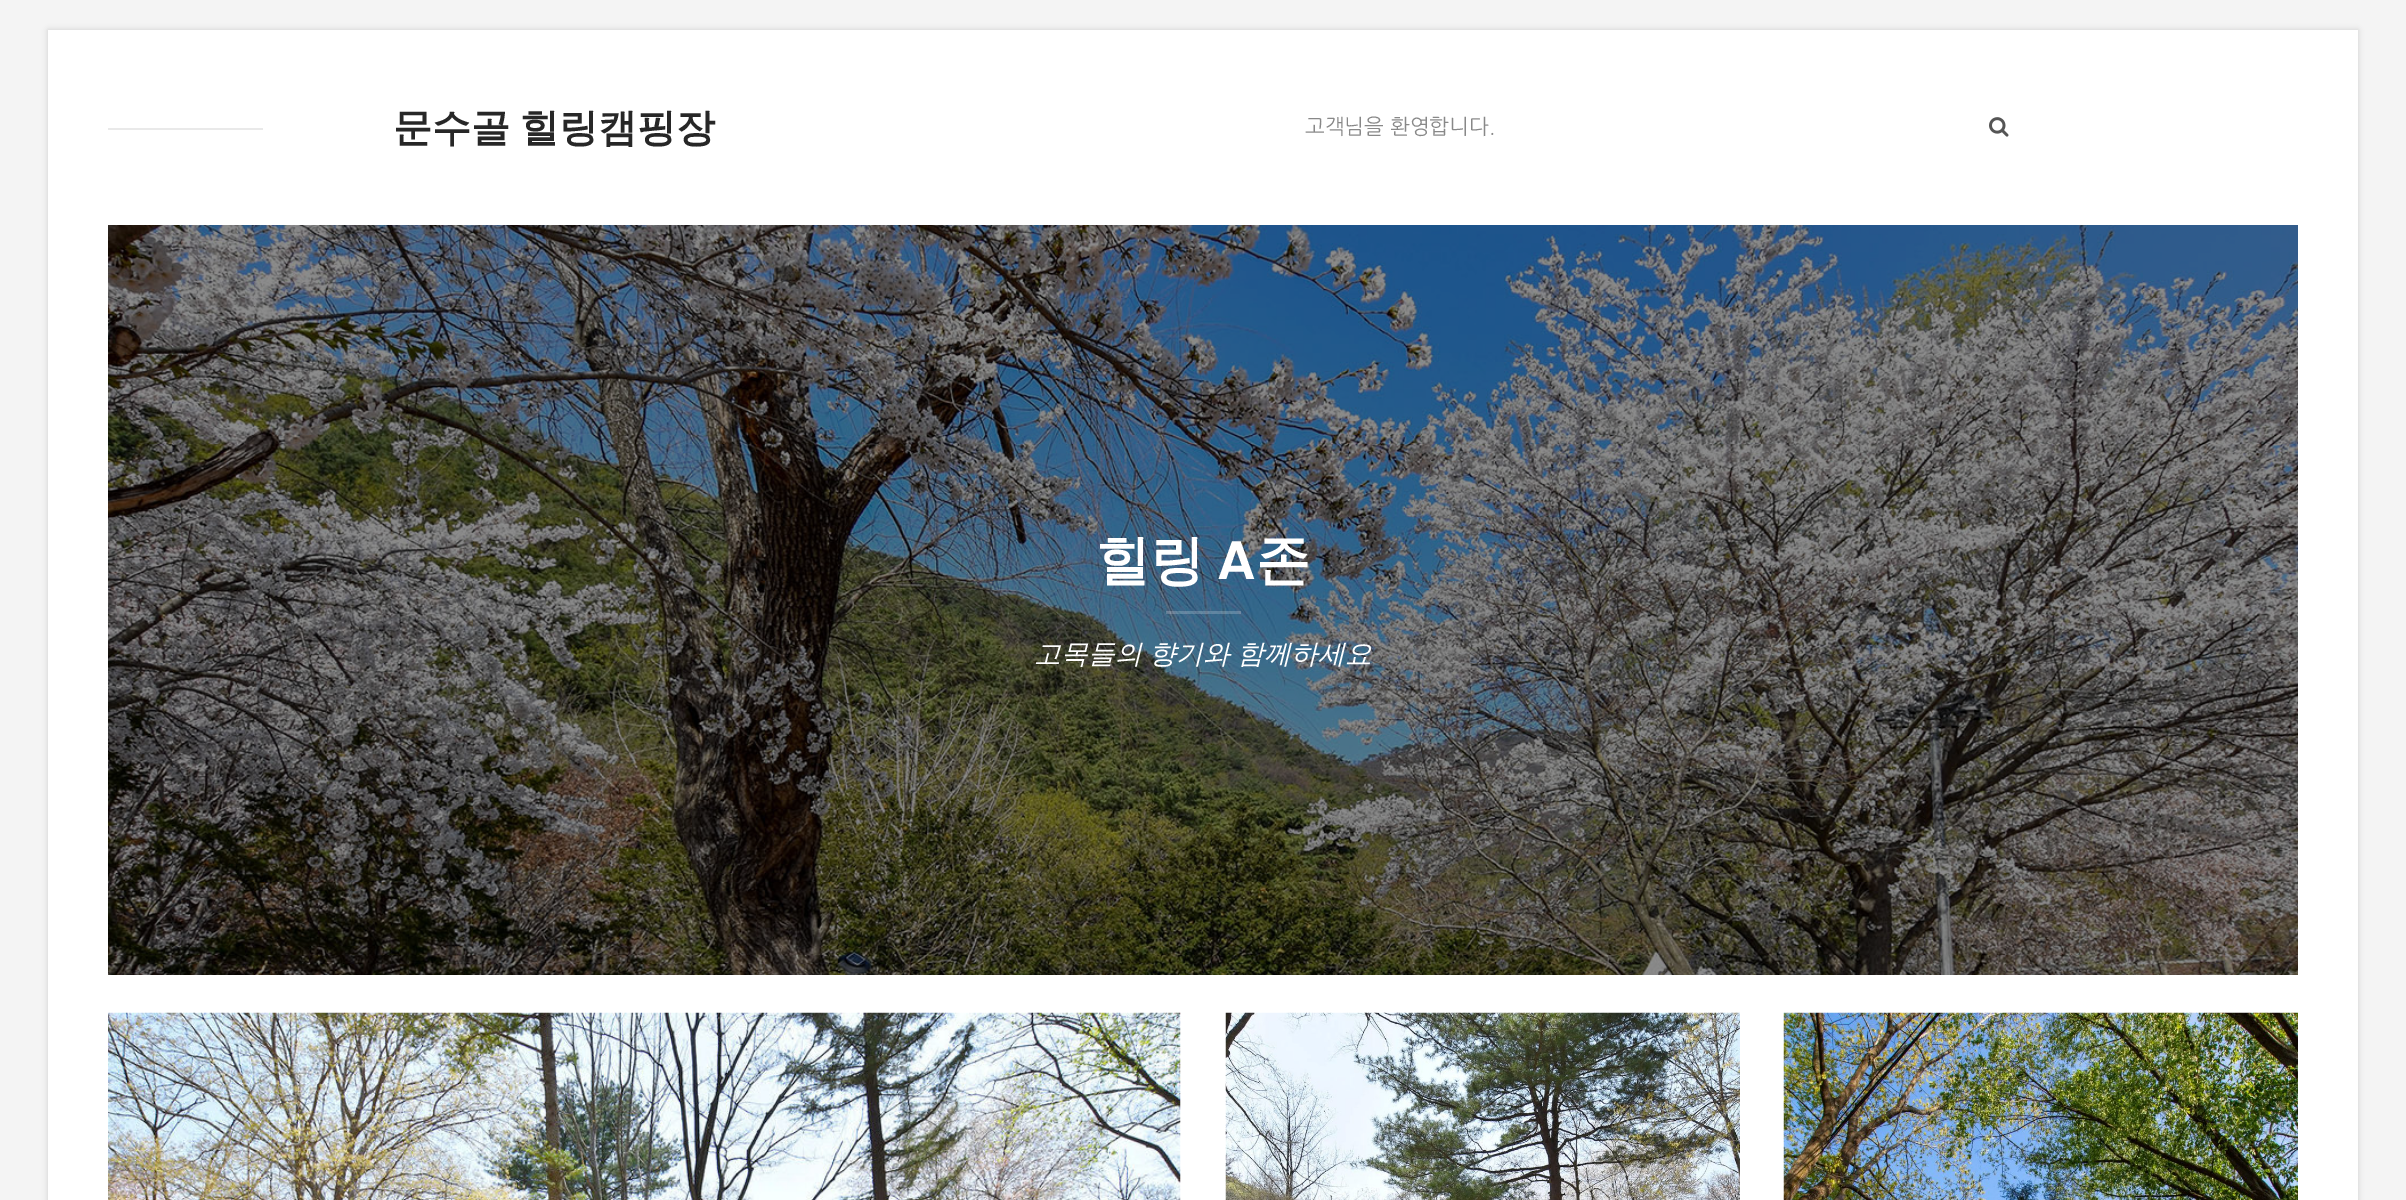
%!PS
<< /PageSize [2406 1200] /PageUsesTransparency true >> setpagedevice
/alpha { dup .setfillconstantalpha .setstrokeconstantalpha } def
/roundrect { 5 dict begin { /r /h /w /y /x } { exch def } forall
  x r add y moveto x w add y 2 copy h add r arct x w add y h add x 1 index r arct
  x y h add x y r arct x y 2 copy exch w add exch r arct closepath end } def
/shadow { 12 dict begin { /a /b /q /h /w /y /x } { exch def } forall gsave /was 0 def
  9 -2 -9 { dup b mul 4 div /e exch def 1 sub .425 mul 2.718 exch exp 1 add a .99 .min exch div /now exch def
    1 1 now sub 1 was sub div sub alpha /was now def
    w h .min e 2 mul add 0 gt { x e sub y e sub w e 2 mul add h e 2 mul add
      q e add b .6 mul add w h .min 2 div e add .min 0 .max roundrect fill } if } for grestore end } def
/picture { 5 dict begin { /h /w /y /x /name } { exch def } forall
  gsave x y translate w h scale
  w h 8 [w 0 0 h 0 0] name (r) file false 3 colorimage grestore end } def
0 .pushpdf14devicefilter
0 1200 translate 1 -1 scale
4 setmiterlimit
0.957 setgray
0 0 2406 1200 rectfill
0 setgray
48 30 2310 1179 0 3 0.15 shadow
1 setgray
48 30 2310 1170 rectfill
0.914 setgray
108 128 155 2 rectfill
/WenQuanYiZenHei-Bold [39 0 0 -39 0 0] selectfont
0.153 setgray
393 141 moveto -2 0 32 (문수골 힐링캠핑장) widthshow
/NanumGothic-Regular [21 0 0 -21 0 0] selectfont
0.533 setgray
1305 134 moveto (고객님을 환영합니다.) show
(img1.rgb) 1989 117 20 20 picture
(img2.rgb) 108 225 2190 750 picture
/WenQuanYiZenHei-Bold [54 0 0 -54 0 0] selectfont
1 setgray
1096 579 moveto (힐링) show
/Poppins-SemiBold [54 0 0 -54 0 0] selectfont
1217 579 moveto (A) show
/WenQuanYiZenHei-Bold [54 0 0 -54 0 0] selectfont
1256 579 moveto (존) show
0.2 alpha
1166 611 75 3 rectfill
/WenQuanYiZenHei-MediumItalic [27 0 0 -27 0 0] selectfont
1 alpha
1034 663 moveto -1 0 32 (고목들의 향기와 함께하세요) widthshow
(img3.rgb) 108 1012 1073 188 picture
(img4.rgb) 1225 1012 515 188 picture
(img5.rgb) 1783 1012 515 188 picture
.poppdf14devicefilter showpage
